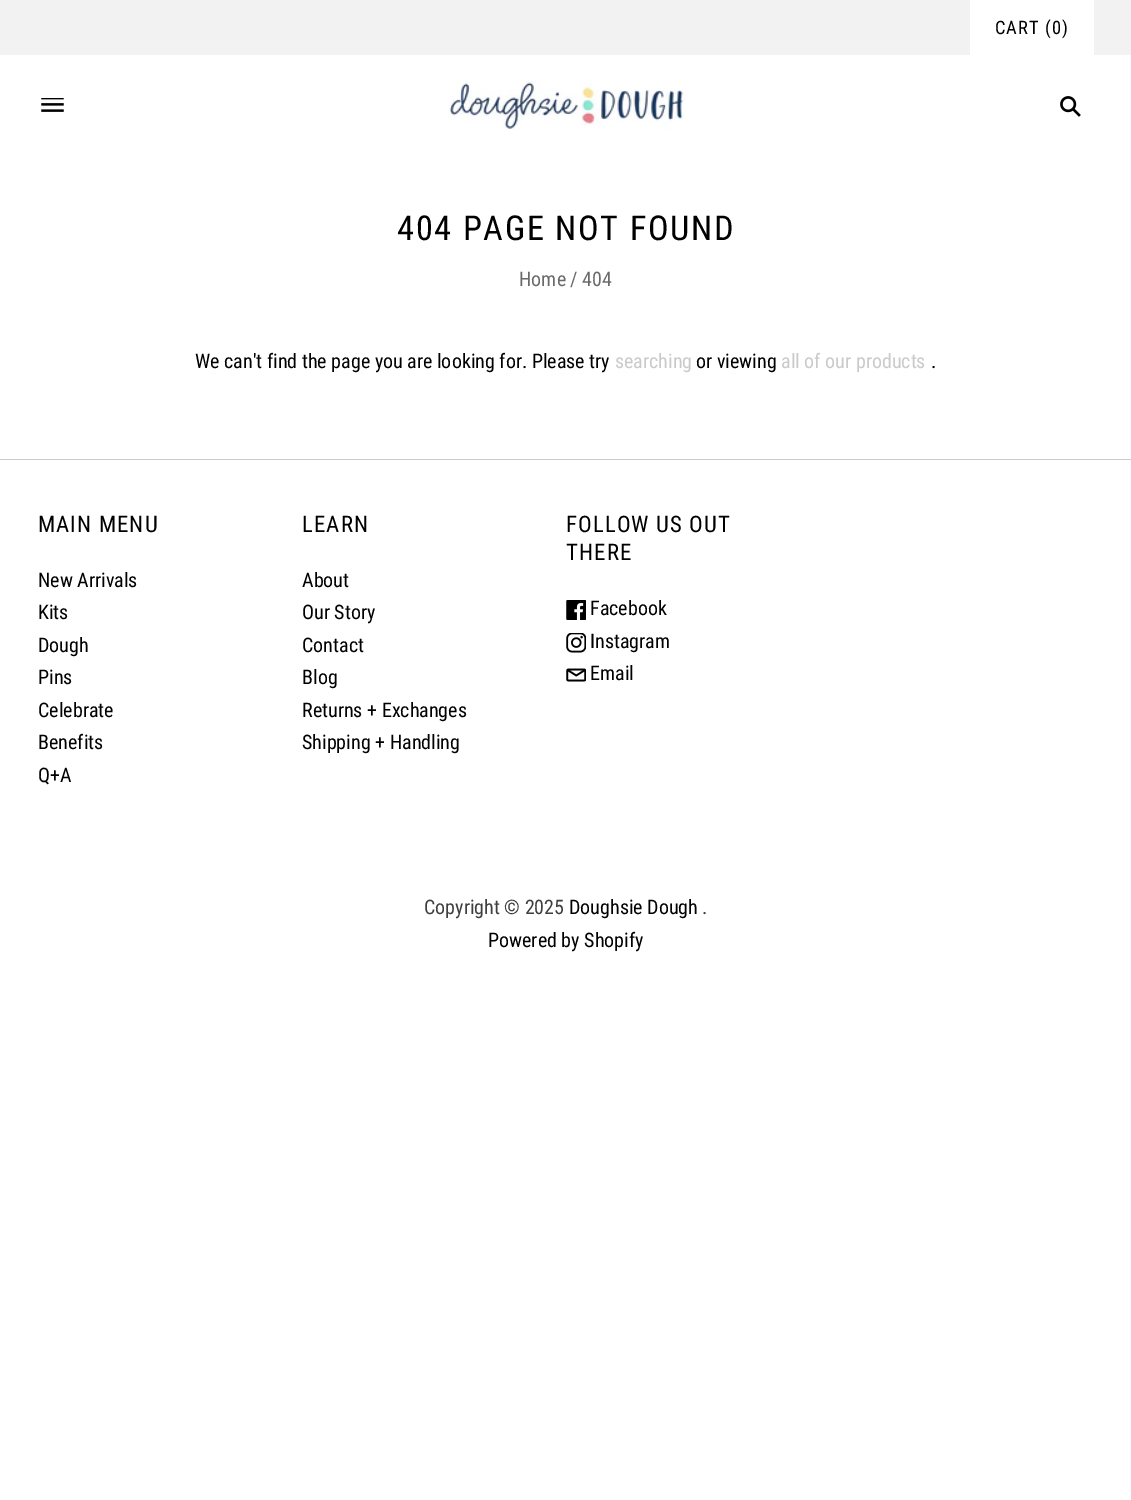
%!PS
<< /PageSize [1131 1500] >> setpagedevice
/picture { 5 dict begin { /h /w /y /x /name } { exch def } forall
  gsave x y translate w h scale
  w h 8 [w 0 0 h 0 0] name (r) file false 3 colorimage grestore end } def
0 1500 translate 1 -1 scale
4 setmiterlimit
1 setgray
0 0 1131 1500 rectfill
0.949 setgray
0 0 1131 55 rectfill
1 setgray
970 0 124 55 rectfill
/RobotoCondensed-Regular [18.5 0 0 -18.5 0 0] selectfont
0 setgray
995 34 moveto 1 0 (CART \(0\)) ashow
(img1.rgb) 41 98 23 14 picture
(img2.rgb) 449 80 237 50 picture
(img3.rgb) 1060 96 21 21 picture
/RobotoCondensed-Regular [34.25 0 0 -34.25 0 0] selectfont
397 240 moveto 1.75 0 (404 PAGE NOT FOUND) ashow
/RobotoCondensed-Regular [20 0 0 -20 0 0] selectfont
0.416 setgray
519 286 moveto (Home / 404) show
0 setgray
195 368 moveto (We can't find the page you are looking for. Please try) show
0.792 setgray
615 368 moveto (searching) show
0 setgray
696 368 moveto (or viewing) show
0.792 setgray
781 368 moveto (all of our products) show
0 setgray
931 368 moveto (.) show
0.792 setgray
0 459 1131 1 rectfill
/RobotoCondensed-Regular [22.75 0 0 -22.75 0 0] selectfont
0 setgray
38 532 moveto 1.1 0 (MAIN MENU) ashow
/RobotoCondensed-Regular [20 0 0 -20 0 0] selectfont
38 587 moveto (New Arrivals) show
38 619 moveto (Kits) show
38 652 moveto (Dough) show
38 684 moveto (Pins) show
38 717 moveto (Celebrate) show
38 749 moveto (Benefits) show
38 782 moveto (Q+A) show
/RobotoCondensed-Regular [22.75 0 0 -22.75 0 0] selectfont
302 532 moveto 1.1 0 (LEARN) ashow
/RobotoCondensed-Regular [20 0 0 -20 0 0] selectfont
302 587 moveto (About) show
302 619 moveto (Our Story) show
302 652 moveto (Contact) show
302 684 moveto (Blog) show
302 717 moveto (Returns + Exchanges) show
302 749 moveto (Shipping + Handling) show
/RobotoCondensed-Regular [22.75 0 0 -22.75 0 0] selectfont
566 532 moveto 1.1 0 (FOLLOW US OUT) ashow
566 560 moveto 1.1 0 (THERE) ashow
(img4.rgb) 566 600 20 20 picture
/RobotoCondensed-Regular [20 0 0 -20 0 0] selectfont
590 615 moveto (Facebook) show
(img5.rgb) 566 633 20 20 picture
590 648 moveto (Instagram) show
(img6.rgb) 566 668 20 14 picture
590 680 moveto (Email) show
0.247 setgray
424 914 moveto (Copyright © 2025) show
0 setgray
569 914 moveto (Doughsie Dough) show
0.247 setgray
702 914 moveto (.) show
0 setgray
488 947 moveto (Powered by Shopify) show
showpage
